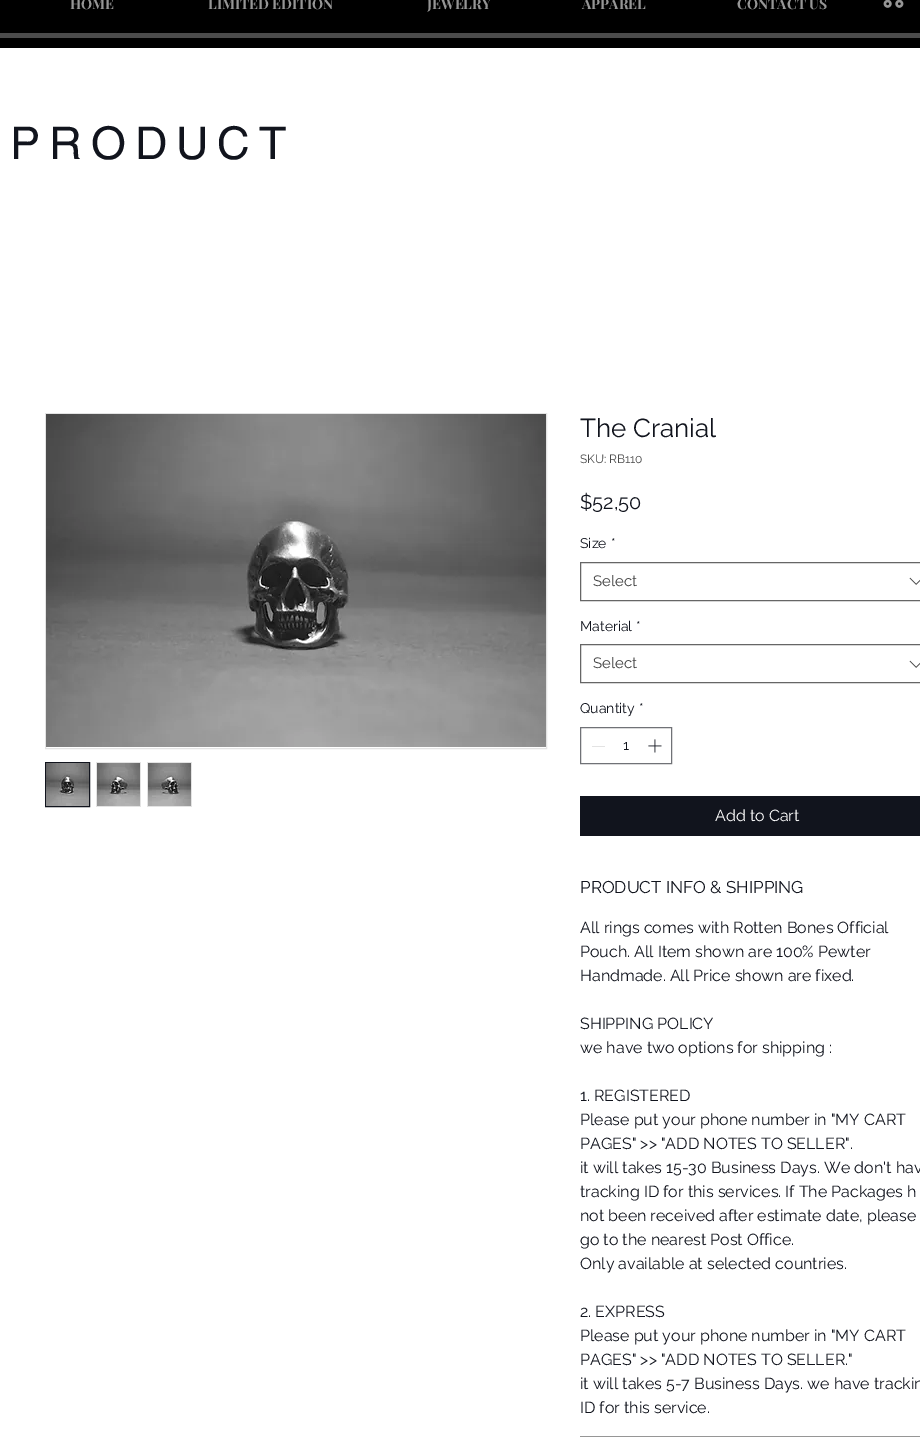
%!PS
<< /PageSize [920 1450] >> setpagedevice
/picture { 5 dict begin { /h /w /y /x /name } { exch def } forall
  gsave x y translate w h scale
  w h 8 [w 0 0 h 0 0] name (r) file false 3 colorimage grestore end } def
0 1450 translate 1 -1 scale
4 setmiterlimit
1 setgray
0 0 920 1450 rectfill
0 setgray
0 0 920 48 rectfill
/PlayfairDisplay-Bold [14 0 0 -14 0 0] selectfont
0.588 setgray
70 9 moveto (HOME) show
208 9 moveto (LIMITED EDITION) show
427 9 moveto (JEWELRY) show
582 9 moveto (APPAREL) show
737 9 moveto (CONTACT US) show
(img1.rgb) 883 0 21 8 picture
0.294 setgray
0 33 920 5 rectfill
/helvetica-Regular [45 0 0 -45 0 0] selectfont
0.067 0.078 0.114 setrgbcolor
10 159 moveto 9 0 (PRODUCT) ashow
0.89 setgray
45.5 413.5 501 335 rectstroke
(img2.rgb) 46 414 500 333 picture
0.067 0.078 0.114 setrgbcolor
45.5 762.5 44 44 rectstroke
(img3.rgb) 46 763 43 43 picture
0.89 setgray
96 762 45 45 rectfill
(img4.rgb) 97 763 43 43 picture
147 762 45 45 rectfill
(img5.rgb) 148 763 43 43 picture
/Raleway-Regular [26 0 0 -26 0 0] selectfont
0.067 0.078 0.114 setrgbcolor
580 437 moveto (The Cranial) show
/Raleway-Regular [12 0 0 -12 0 0] selectfont
0.294 setgray
580 463 moveto (SKU: RB110) show
/Raleway-Regular [20 0 0 -20 0 0] selectfont
0.067 0.078 0.114 setrgbcolor
580 509 moveto ($52,50) show
/Raleway-Regular [14 0 0 -14 0 0] selectfont
580 548 moveto (Size) show
611 548 moveto (*) show
0.4 setgray
580.5 562.5 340 38 rectstroke
/Raleway-Regular [15 0 0 -15 0 0] selectfont
0.267 setgray
593 586 moveto (Select) show
(img6.rgb) 909 577 11 8 picture
/Raleway-Regular [14 0 0 -14 0 0] selectfont
0.067 0.078 0.114 setrgbcolor
580 631 moveto (Material) show
636 631 moveto (*) show
0.4 setgray
580.5 644.5 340 38 rectstroke
/Raleway-Regular [15 0 0 -15 0 0] selectfont
0.267 setgray
593 668 moveto (Select) show
(img6.rgb) 909 660 11 8 picture
/Raleway-Regular [14 0 0 -14 0 0] selectfont
0.067 0.078 0.114 setrgbcolor
580 713 moveto (Quantity) show
639 713 moveto (*) show
0.439 0.447 0.467 setrgbcolor
580.5 727.5 91 36 rectstroke
0.89 setgray
592 746 13 1 rectfill
0.067 0.078 0.114 setrgbcolor
623 750 moveto (1) show
(img7.rgb) 648 739 14 14 picture
580 796 340 40 rectfill
/Raleway-Regular [16 0 0 -16 0 0] selectfont
1 setgray
715 821 moveto (Add to Cart) show
0.588 setgray
580 1436 340 1 rectfill
/Raleway-Regular [17 0 0 -17 0 0] selectfont
0.067 0.078 0.114 setrgbcolor
580 893 moveto (PRODUCT INFO & SHIPPING) show
/Raleway-Regular [16 0 0 -16 0 0] selectfont
580 933 moveto (All rings comes with Rotten Bones Official) show
580 957 moveto (Pouch. All Item shown are 100% Pewter) show
580 981 moveto (Handmade. All Price shown are fixed.) show
580 1029 moveto (SHIPPING POLICY) show
580 1053 moveto (we have two options for shipping :) show
580 1101 moveto (1. REGISTERED) show
580 1125 moveto (Please put your phone number in "MY CART) show
580 1149 moveto (PAGES" >> "ADD NOTES TO SELLER".) show
580 1173 moveto (it will takes 15-30 Business Days. We don't hav) show
580 1197 moveto (tracking ID for this services. If The Packages h) show
580 1221 moveto (not been received after estimate date, please) show
580 1245 moveto (go to the nearest Post Office.) show
580 1269 moveto (Only available at selected countries.) show
580 1317 moveto (2. EXPRESS) show
580 1341 moveto (Please put your phone number in "MY CART) show
580 1365 moveto (PAGES" >> "ADD NOTES TO SELLER.") show
580 1389 moveto (it will takes 5-7 Business Days. we have trackin) show
580 1413 moveto (ID for this service.) show
showpage
